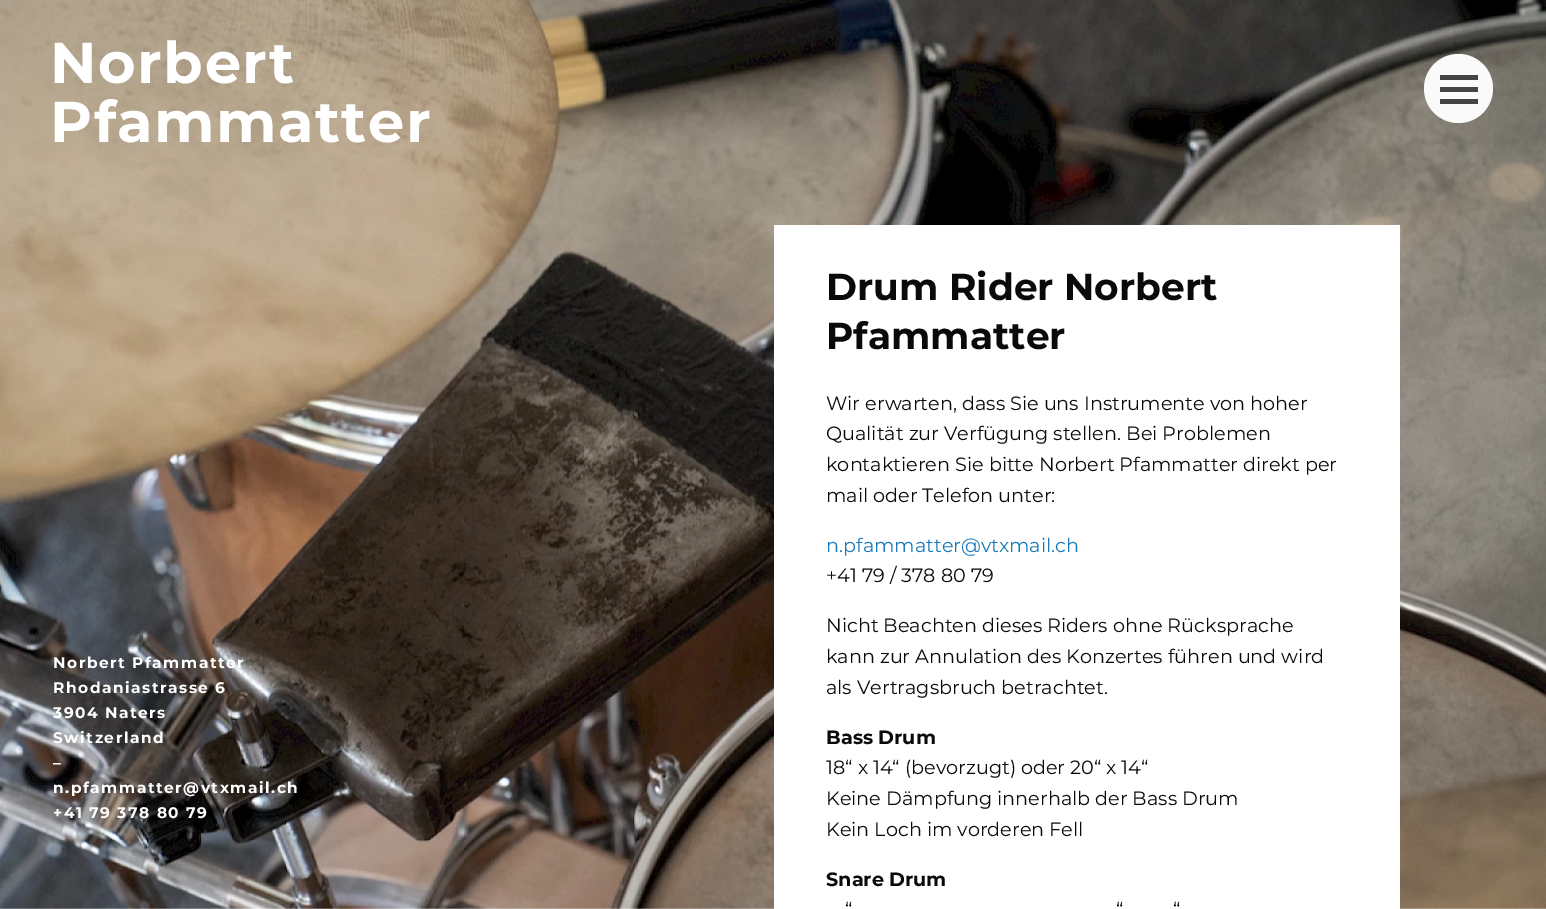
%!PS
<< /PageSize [1546 909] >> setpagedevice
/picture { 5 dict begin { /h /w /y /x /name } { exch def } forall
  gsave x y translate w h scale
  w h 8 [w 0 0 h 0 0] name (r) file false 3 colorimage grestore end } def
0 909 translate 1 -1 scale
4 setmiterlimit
1 setgray
0 0 1546 909 rectfill
(img1.rgb) 0 0 1546 909 picture
/Montserrat-Bold [57.5 0 0 -57.5 0 0] selectfont
50 83 moveto 1.5 0 (Norbert) ashow
50 142 moveto 1.5 0 (Pfammatter) ashow
0.98 setgray
newpath 1458.5 88.5 34.5 0 360 arc closepath fill
0.267 setgray
1440 87 38 5 rectfill
1440 75 38 5 rectfill
1440 99 38 5 rectfill
/Montserrat-Bold [15.4 0 0 -15.4 0 0] selectfont
1 setgray
53 668 moveto 1.5 0 (Norbert Pfammatter) ashow
53 693 moveto 1.5 0 (Rhodaniastrasse 6) ashow
53 718 moveto 1.5 0 (3904 Naters) ashow
53 743 moveto 1.5 0 (Switzerland) ashow
53 768 moveto 1.5 0 (–) ashow
53 793 moveto 1.5 0 (n.pfammatter@vtxmail.ch) ashow
53 818 moveto 1.5 0 (+41 79 378 80 79) ashow
774 225 626 684 rectfill
/Montserrat-Bold [37.5 0 0 -37.5 0 0] selectfont
0.039 setgray
826 300 moveto (Drum Rider Norbert) show
826 349 moveto (Pfammatter) show
/Montserrat-Regular [19.2 0 0 -19.2 0 0] selectfont
826 410 moveto (Wir erwarten, dass Sie uns Instrumente von hoher) show
826 440 moveto (Qualität zur Verfügung stellen. Bei Problemen) show
826 471 moveto (kontaktieren Sie bitte Norbert Pfammatter direkt per) show
826 502 moveto (mail oder Telefon unter:) show
0.09 0.475 0.729 setrgbcolor
826 552 moveto (n.pfammatter@vtxmail.ch) show
0.039 setgray
826 582 moveto (+41 79 / 378 80 79) show
826 632 moveto (Nicht Beachten dieses Riders ohne Rücksprache) show
826 663 moveto (kann zur Annulation des Konzertes führen und wird) show
826 694 moveto (als Vertragsbruch betrachtet.) show
/Montserrat-Bold [19.2 0 0 -19.2 0 0] selectfont
826 744 moveto (Bass Drum) show
/Montserrat-Regular [19.2 0 0 -19.2 0 0] selectfont
826 774 moveto (18“ x 14“ \(bevorzugt\) oder 20“ x 14“) show
826 805 moveto (Keine Dämpfung innerhalb der Bass Drum) show
826 836 moveto (Kein Loch im vorderen Fell) show
/Montserrat-Bold [19.2 0 0 -19.2 0 0] selectfont
826 886 moveto (Snare Drum) show
/Montserrat-Regular [19.2 0 0 -19.2 0 0] selectfont
845 916 moveto (“) show
1116 916 moveto (“) show
1173 916 moveto (“) show
showpage
